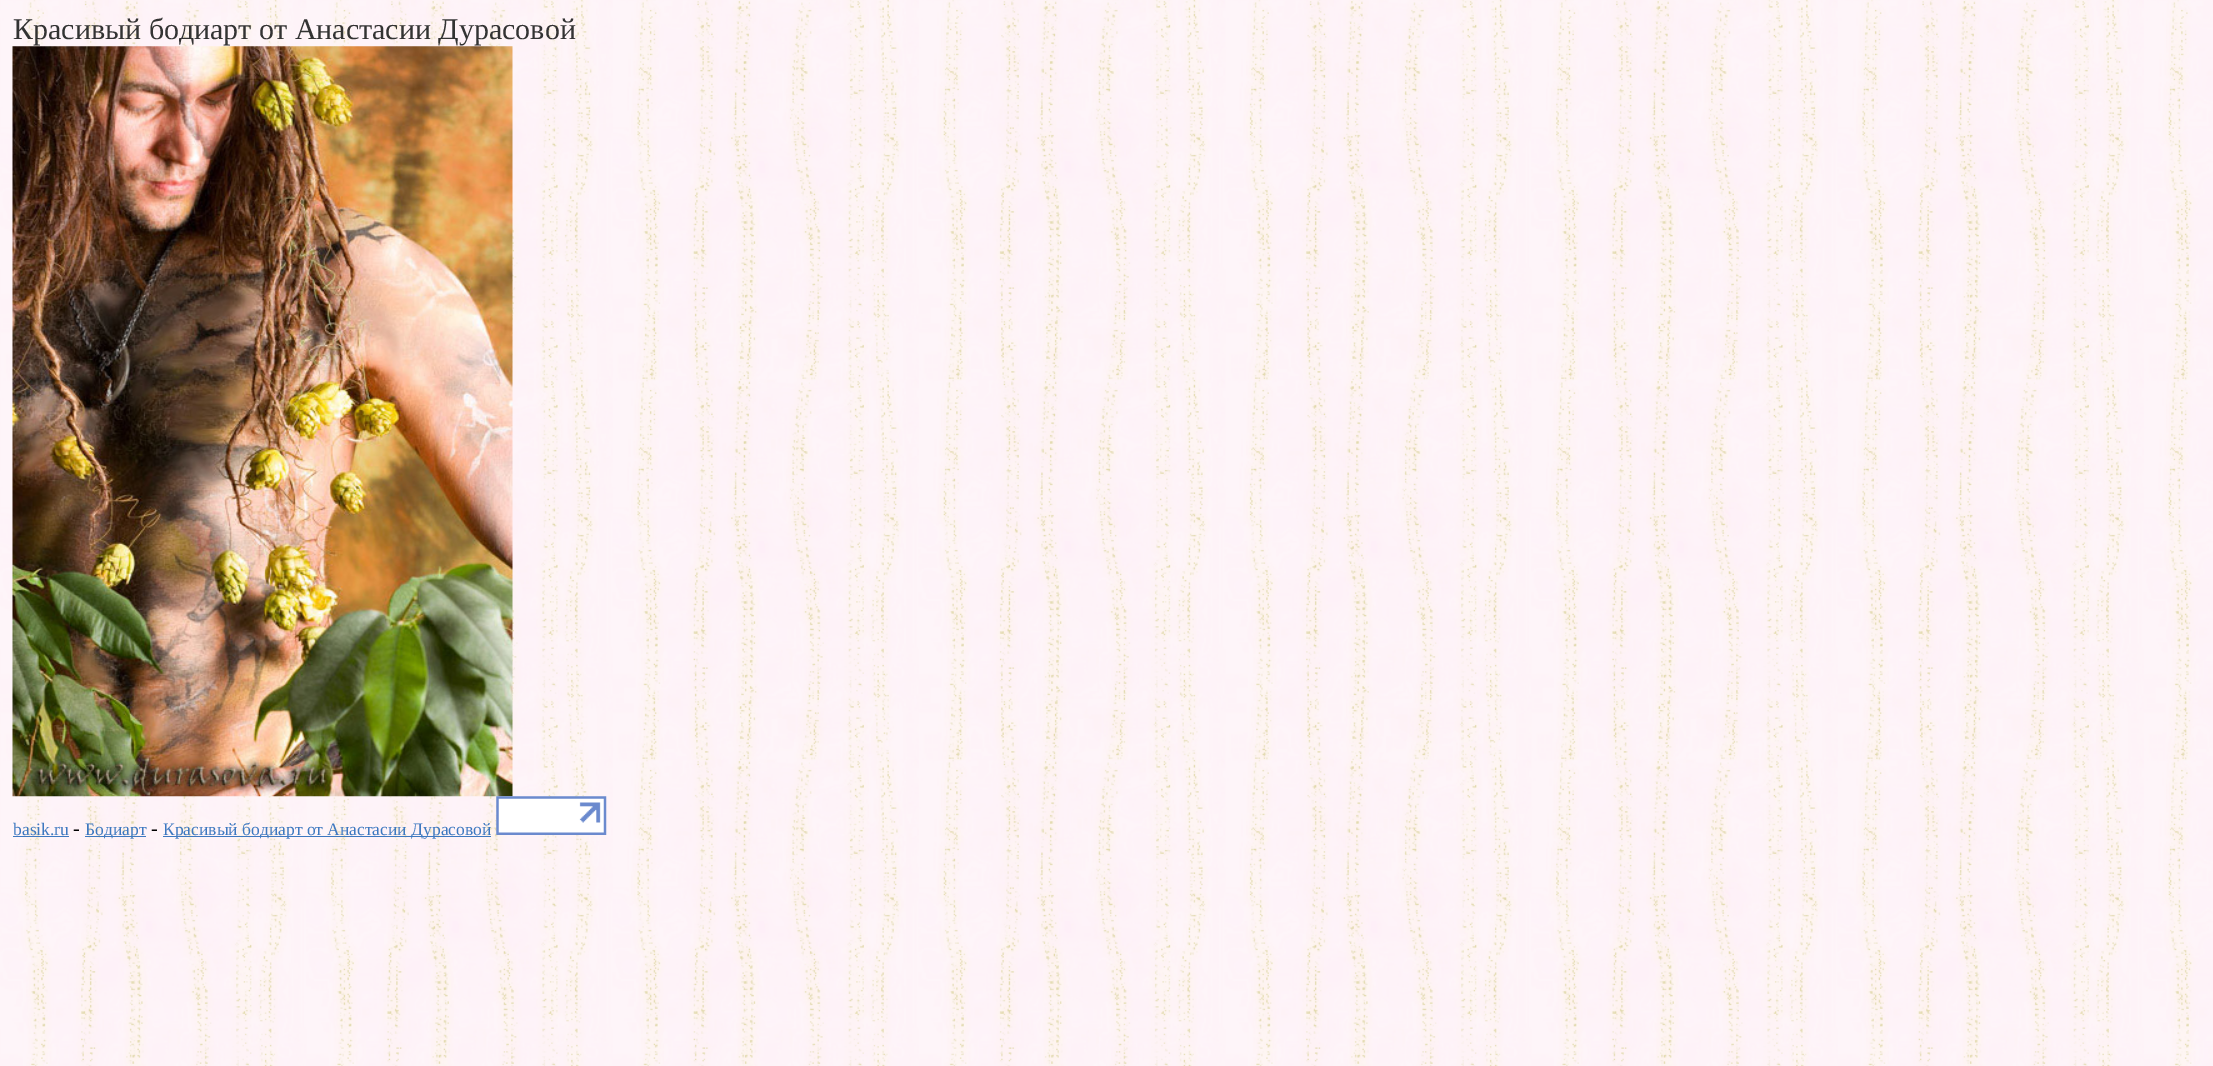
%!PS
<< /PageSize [2213 1066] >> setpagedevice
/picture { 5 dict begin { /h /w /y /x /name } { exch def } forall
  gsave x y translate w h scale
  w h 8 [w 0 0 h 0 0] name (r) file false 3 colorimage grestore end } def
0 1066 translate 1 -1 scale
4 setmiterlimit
1 setgray
0 0 2213 1066 rectfill
(img1.rgb) 0 0 2213 1066 picture
/LiberationSerif-Regular [30 0 0 -30 0 0] selectfont
0.2 setgray
13 39 moveto (Красивый бодиарт от Анастасии Дурасовой) show
(img2.rgb) 12 46 501 751 picture
/LiberationSerif-Regular [17.5 0 0 -17.5 0 0] selectfont
0.239 0.471 0.753 setrgbcolor
13 835 moveto (basik.ru) show
13 836 56 1 rectfill
/LiberationSerif-Regular [20 0 0 -20 0 0] selectfont
0 setgray
73 835 moveto (-) show
0.239 0.471 0.753 setrgbcolor
85 836 61 1 rectfill
/LiberationSerif-Regular [17.5 0 0 -17.5 0 0] selectfont
85 835 moveto (Бодиарт) show
/LiberationSerif-Regular [20 0 0 -20 0 0] selectfont
0 setgray
151 835 moveto (-) show
0.239 0.471 0.753 setrgbcolor
163 836 328 1 rectfill
/LiberationSerif-Regular [17.5 0 0 -17.5 0 0] selectfont
163 835 moveto (Красивый бодиарт от Анастасии Дурасовой) show
(img3.rgb) 496 796 111 39 picture
showpage
